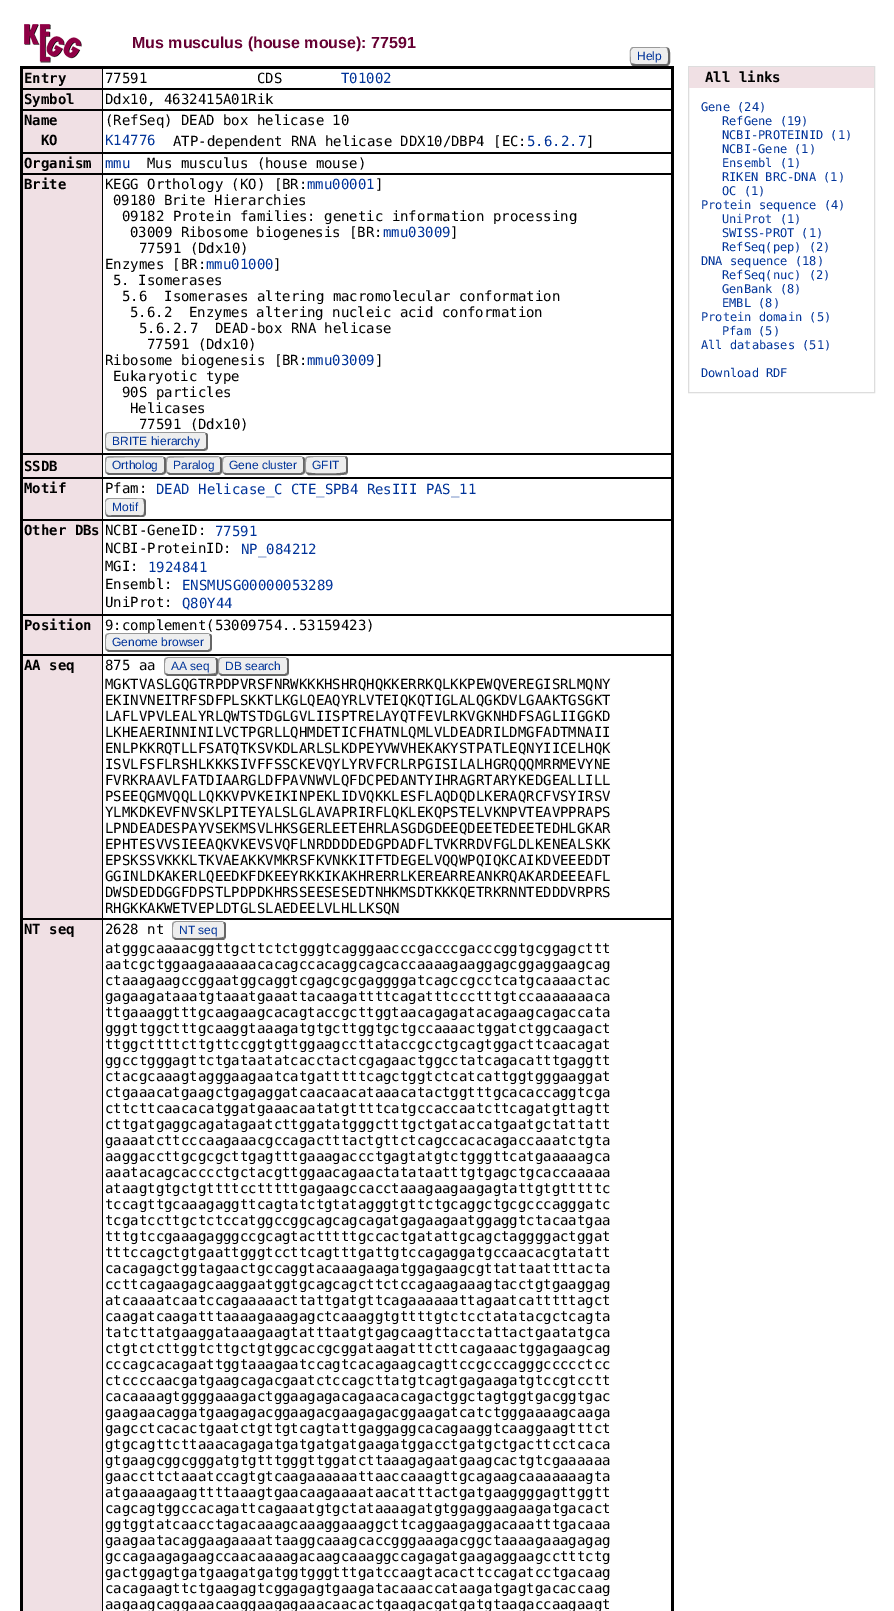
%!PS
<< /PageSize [894 1611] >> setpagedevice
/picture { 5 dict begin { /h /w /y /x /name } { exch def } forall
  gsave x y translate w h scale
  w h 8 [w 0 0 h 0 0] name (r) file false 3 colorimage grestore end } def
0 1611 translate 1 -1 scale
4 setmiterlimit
1 setgray
0 0 894 1611 rectfill
(img1.rgb) 24 24 58 39 picture
/LiberationSans-Bold [16 0 0 -16 0 0] selectfont
0.4 0 0.2 setrgbcolor
132 48 moveto (Mus musculus \(house mouse\): 77591) show
0.933 setgray
newpath 634 48 moveto 666 48 lineto 667 48 668 49.5 668 51 curveto 668 62 lineto 668 63 667 64 666 64 curveto 634 64 lineto 632.5 64 631 63 631 62 curveto 631 51 lineto 631 49.5 632.5 48 634 48 curveto closepath fill
0.6 setgray
newpath 634 47 moveto 632.5 47 631.5 47.5 631 48 curveto 632 49 lineto 633 48 lineto 655 48 lineto 665 47.5 lineto 665.5 47.5 666.5 48 667 48.5 curveto 668.5 48 lineto 667 47 lineto closepath fill
0.4 setgray
newpath 670 63 moveto 669 65 lineto 667.5 63.5 lineto 668.5 61.5 668.5 50 667 48.5 curveto 668.5 48 lineto 671 50.5 670 59.5 670 63 curveto closepath fill
newpath 633 66 moveto 632 65.5 631.5 65 631 64 curveto 631.5 63 lineto 634 65 648 64 652 64 curveto 662.5 64 lineto 663.5 64 666.5 64.5 667.5 63.5 curveto 669 65 lineto 668.5 65.5 667.5 66 666 66 curveto closepath fill
0.6 setgray
newpath 630 50 moveto 631 48 lineto 632 49 lineto 631 49.5 631 50.5 630.5 51.5 curveto 631 62 lineto 631.5 63 lineto 631 64 lineto 629 61 630 54 630 50 curveto closepath fill
/LiberationSans-Regular [12 0 0 -12 0 0] selectfont
0 0.2 0.6 setrgbcolor
637 60 moveto (Help) show
0 setgray
20 66 654 1545 rectfill
0.941 0.878 0.894 setrgbcolor
23 69 79 19 rectfill
/DejaVuSansMono-Bold [14 0 0 -14 0 0] selectfont
0 setgray
24 83 moveto (Entry) show
1 setgray
103 69 568 19 rectfill
/DejaVuSansMono-Regular [14 0 0 -14 0 0] selectfont
0 setgray
105 83 moveto (77591             CDS) show
0 0.2 0.6 setrgbcolor
341 83 moveto (T01002) show
0.941 0.878 0.894 setrgbcolor
23 90 79 19 rectfill
/DejaVuSansMono-Bold [14 0 0 -14 0 0] selectfont
0 setgray
24 104 moveto (Symbol) show
1 setgray
103 90 568 19 rectfill
/DejaVuSansMono-Regular [14 0 0 -14 0 0] selectfont
0 setgray
105 104 moveto (Ddx10, 4632415A01Rik) show
0.941 0.878 0.894 setrgbcolor
23 111 79 41 rectfill
/DejaVuSansMono-Bold [14 0 0 -14 0 0] selectfont
0 setgray
24 125 moveto (Name) show
1 setgray
103 111 568 41 rectfill
/DejaVuSansMono-Regular [14 0 0 -14 0 0] selectfont
0 setgray
105 125 moveto (\(RefSeq\) DEAD box helicase 10) show
/DejaVuSansMono-Bold [14 0 0 -14 0 0] selectfont
41 145 moveto (KO) show
/DejaVuSansMono-Regular [14 0 0 -14 0 0] selectfont
0 0.2 0.6 setrgbcolor
105 145 moveto (K14776) show
0 setgray
173 146 moveto (ATP-dependent RNA helicase DDX10/DBP4 [EC:) show
0 0.2 0.6 setrgbcolor
527 146 moveto (5.6.2.7) show
0 setgray
586 146 moveto (]) show
0.941 0.878 0.894 setrgbcolor
23 154 79 19 rectfill
/DejaVuSansMono-Bold [14 0 0 -14 0 0] selectfont
0 setgray
24 168 moveto (Organism) show
1 setgray
103 154 568 19 rectfill
/DejaVuSansMono-Regular [14 0 0 -14 0 0] selectfont
0 0.2 0.6 setrgbcolor
105 168 moveto (mmu) show
0 setgray
147 168 moveto (Mus musculus \(house mouse\)) show
0.941 0.878 0.894 setrgbcolor
23 175 79 278 rectfill
/DejaVuSansMono-Bold [14 0 0 -14 0 0] selectfont
0 setgray
24 189 moveto (Brite) show
1 setgray
103 175 568 278 rectfill
/DejaVuSansMono-Regular [14 0 0 -14 0 0] selectfont
0 setgray
105 189 moveto (KEGG Orthology \(KO\) [BR:) show
0 0.2 0.6 setrgbcolor
307 189 moveto (mmu00001) show
0 setgray
375 189 moveto (]) show
113 205 moveto (09180 Brite Hierarchies) show
122 221 moveto (09182 Protein families: genetic information processing) show
130 237 moveto (03009 Ribosome biogenesis [BR:) show
0 0.2 0.6 setrgbcolor
383 237 moveto (mmu03009) show
0 setgray
450 237 moveto (]) show
139 253 moveto (77591 \(Ddx10\)) show
105 269 moveto (Enzymes [BR:) show
0 0.2 0.6 setrgbcolor
206 269 moveto (mmu01000) show
0 setgray
273 269 moveto (]) show
113 285 moveto (5. Isomerases) show
122 301 moveto (5.6  Isomerases altering macromolecular conformation) show
130 317 moveto (5.6.2  Enzymes altering nucleic acid conformation) show
139 333 moveto (5.6.2.7  DEAD-box RNA helicase) show
147 349 moveto (77591 \(Ddx10\)) show
105 365 moveto (Ribosome biogenesis [BR:) show
0 0.2 0.6 setrgbcolor
307 365 moveto (mmu03009) show
0 setgray
375 365 moveto (]) show
113 381 moveto (Eukaryotic type) show
122 397 moveto (90S particles) show
130 413 moveto (Helicases) show
139 429 moveto (77591 \(Ddx10\)) show
0.933 setgray
newpath 109 433 moveto 204 433 lineto 205 433 206 434 206 436 curveto 206 447 lineto 206 448 205 449 204 449 curveto 109 449 lineto 107 449 106 448 106 447 curveto 106 436 lineto 106 434 107 433 109 433 curveto closepath fill
0.6 setgray
newpath 109 432 moveto 106 433 lineto 107 434 lineto 109 433 lineto 125 433 lineto 133 433 204 433 205 433 curveto 206 433 lineto 204 432 lineto closepath fill
0.4 setgray
newpath 208 447 moveto 208 436 lineto 208 435 207.5 433.5 206.5 433 curveto 205 433.5 lineto 207 435 206 439.5 206 441.5 curveto 206 443 206.5 447 205.5 448.5 curveto 207 450 lineto 207.5 449 208 448 208 447 curveto closepath fill
newpath 109 451 moveto 204 451 lineto 207 450 lineto 205 448 lineto 204 449 lineto 109 449 lineto 106 448 lineto 106 449 lineto 107 450 108 451 109 451 curveto closepath fill
0.6 setgray
newpath 105 436 moveto 105 447 lineto 105 448 105.5 448.5 106 449.5 curveto 106.5 448 lineto 105.5 447 105.5 435 107 434 curveto 106 433 lineto 105.5 434 105 435 105 436 curveto closepath fill
/LiberationSans-Regular [12 0 0 -12 0 0] selectfont
0 0.2 0.6 setrgbcolor
112 445 moveto (BRITE hierarchy) show
0.941 0.878 0.894 setrgbcolor
23 455 79 22 rectfill
/DejaVuSansMono-Bold [14 0 0 -14 0 0] selectfont
0 setgray
24 471 moveto (SSDB) show
1 setgray
103 455 568 22 rectfill
0.933 setgray
newpath 109 457 moveto 162 457 lineto 163 457 164 458 164 460 curveto 164 471 lineto 164 472 163 473 162 473 curveto 109 473 lineto 107 473 106 472 106 471 curveto 106 460 lineto 106 458 107 457 109 457 curveto closepath fill
0.6 setgray
newpath 109 456 moveto 106 457 lineto 107 458 lineto 108 457 162 457 163 457 curveto 164 457 lineto 162 456 lineto closepath fill
0.4 setgray
newpath 166 471 moveto 166 460 lineto 166 459 165.5 457.5 164.5 457 curveto 163 457.5 lineto 165 459 164 463.5 164 465.5 curveto 164 467 164.5 471 163.5 472.5 curveto 165 474 lineto 165.5 473 166 472 166 471 curveto closepath fill
newpath 109 475 moveto 162 475 lineto 165 474 lineto 163 472 lineto 162 473 lineto 109 473 lineto 106 472 lineto 106 473 lineto 107 474 108 475 109 475 curveto closepath fill
0.6 setgray
newpath 105 460 moveto 105 471 lineto 105 472 105.5 472.5 106 473.5 curveto 106.5 472 lineto 105.5 471 105.5 459 107 458 curveto 106 457 lineto 105.5 458 105 459 105 460 curveto closepath fill
/LiberationSans-Regular [12 0 0 -12 0 0] selectfont
0 0.2 0.6 setrgbcolor
112 469 moveto (Ortholog) show
0.933 setgray
newpath 170 457 moveto 218 457 lineto 219 457 220 458 220 460 curveto 220 471 lineto 220 472 219 473 218 473 curveto 170 473 lineto 168 473 167 472 167 471 curveto 167 460 lineto 167 458 168 457 170 457 curveto closepath fill
0.6 setgray
newpath 170 456 moveto 167 457 lineto 168 458 lineto 169 457 218 457 219 457 curveto 220 457 lineto 218 456 lineto closepath fill
0.4 setgray
newpath 222 471 moveto 222 460 lineto 222 459 221.5 457.5 220.5 457 curveto 219 457.5 lineto 221 459 220 463.5 220 465.5 curveto 220 467 220.5 471 219.5 472.5 curveto 221 474 lineto 221.5 473 222 472 222 471 curveto closepath fill
newpath 170 475 moveto 219 475 lineto 221 474 lineto 219 472 lineto 218 474 174 473 170 473 curveto 167 472 lineto 167 473 lineto 168 474 169 475 170 475 curveto closepath fill
0.6 setgray
newpath 166 460 moveto 166 471 lineto 166 472 166.5 472.5 167 473.5 curveto 167.5 472 lineto 166.5 471 166.5 459 168 458 curveto 167 457 lineto 166.5 458 166 459 166 460 curveto closepath fill
0 0.2 0.6 setrgbcolor
173 469 moveto (Paralog) show
0.933 setgray
newpath 226 457 moveto 301 457 lineto 302 457 303 458 303 460 curveto 303 471 lineto 303 472 302 473 301 473 curveto 226 473 lineto 224 473 223 472 223 471 curveto 223 460 lineto 223 458 224 457 226 457 curveto closepath fill
0.6 setgray
newpath 226 456 moveto 223 457 lineto 224 458 lineto 226 457 lineto 302 457 lineto 303 457 lineto 301 456 lineto closepath fill
0.4 setgray
newpath 305 471 moveto 305 460 lineto 305 459 304.5 457.5 303.5 457 curveto 302 457.5 lineto 304 459 303 463.5 303 465.5 curveto 303 467 303.5 471 302.5 472.5 curveto 304 474 lineto 304.5 473 305 472 305 471 curveto closepath fill
newpath 226 475 moveto 301 475 lineto 304 474 lineto 302 472 lineto 301 473 lineto 226 473 lineto 225 473 224 473 223 472 curveto 223 473 lineto 224 474 225 475 226 475 curveto closepath fill
0.6 setgray
newpath 222 460 moveto 222 471 lineto 222 472 222.5 472.5 223 473.5 curveto 223.5 472 lineto 222.5 471 222.5 459 224 458 curveto 223 457 lineto 222.5 458 222 459 222 460 curveto closepath fill
0 0.2 0.6 setrgbcolor
229 469 moveto (Gene cluster) show
0.933 setgray
newpath 309 457 moveto 344 457 lineto 345 457 346 458 346 460 curveto 346 471 lineto 346 472 345 473 344 473 curveto 309 473 lineto 307 473 306 472 306 471 curveto 306 460 lineto 306 458 307 457 309 457 curveto closepath fill
0.6 setgray
newpath 309 456 moveto 306 457 lineto 307 458 lineto 308 456 344 457 345 457 curveto 347 457 lineto 346 456 lineto closepath fill
0.4 setgray
newpath 348 471 moveto 348 472 347.5 473 347 474 curveto 345.5 472.5 lineto 346.5 471 346 467 346 465.5 curveto 346 463.5 347 459 345 457.5 curveto 346.5 456.5 lineto 347.5 457.5 348 458.5 348 459.5 curveto closepath fill
newpath 308 475 moveto 306 473 lineto 306 472 lineto 308 474 344 474 345 472 curveto 347 474 lineto 345 476 313 475 308 475 curveto closepath fill
0.6 setgray
newpath 305 460.5 moveto 305 459 305.5 458 306 457 curveto 307 458 lineto 305.5 459 305.5 471 306.5 472 curveto 306 473.5 lineto 304 470 305 464 305 460.5 curveto closepath fill
0 0.2 0.6 setrgbcolor
312 469 moveto (GFIT) show
0.941 0.878 0.894 setrgbcolor
23 479 79 40 rectfill
/DejaVuSansMono-Bold [14 0 0 -14 0 0] selectfont
0 setgray
24 493 moveto (Motif) show
1 setgray
103 479 568 40 rectfill
/DejaVuSansMono-Regular [14 0 0 -14 0 0] selectfont
0 setgray
105 493 moveto (Pfam:) show
0 0.2 0.6 setrgbcolor
156 494 moveto (DEAD Helicase_C CTE_SPB4 ResIII PAS_11) show
0.933 setgray
newpath 109 499 moveto 142 499 lineto 143 499 144 500.5 144 502 curveto 144 513 lineto 144 514 143 515 142 515 curveto 109 515 lineto 107.5 515 106 514 106 513 curveto 106 502 lineto 106 500.5 107.5 499 109 499 curveto closepath fill
0.6 setgray
newpath 109 498 moveto 108 498 107 498.5 106 499 curveto 107 500 lineto 108.5 498 114.5 499 116.5 499 curveto 132.5 499 lineto 141 498.5 lineto 141.5 498.5 142.5 499 143 499.5 curveto 144.5 499 lineto 143.5 498.5 143 498 142 498 curveto closepath fill
0.4 setgray
newpath 146 513 moveto 146 502 lineto 146 501 145.5 499.5 144.5 499 curveto 143 499.5 lineto 144.5 501 144.5 512.5 143.5 514.5 curveto 145 516 lineto 145.5 515 146 514 146 513 curveto closepath fill
newpath 109 517 moveto 142 517 lineto 143 517 144 516.5 145 516 curveto 143.5 514.5 lineto 142 516 138 515 137.5 515 curveto 114 515 lineto 108.5 515.5 lineto 107.5 515 107 514.5 106.5 514 curveto 106 515.5 lineto 106.5 516.5 108 517 109 517 curveto closepath fill
0.6 setgray
newpath 105 502 moveto 105 513 lineto 105 514 105.5 514.5 106 515.5 curveto 106.5 514 lineto 105.5 512 105.5 504 105.5 502.5 curveto 106 501.5 106 500.5 107 500 curveto 106 499 lineto 105.5 500 105 501 105 502 curveto closepath fill
/LiberationSans-Regular [12 0 0 -12 0 0] selectfont
0 0.2 0.6 setrgbcolor
112 511 moveto (Motif) show
0.941 0.878 0.894 setrgbcolor
23 521 79 93 rectfill
/DejaVuSansMono-Bold [14 0 0 -14 0 0] selectfont
0 setgray
24 535 moveto (Other DBs) show
1 setgray
103 521 568 93 rectfill
/DejaVuSansMono-Regular [14 0 0 -14 0 0] selectfont
0 setgray
105 535 moveto (NCBI-GeneID:) show
0 0.2 0.6 setrgbcolor
215 536 moveto (77591) show
0 setgray
105 553 moveto (NCBI-ProteinID:) show
0 0.2 0.6 setrgbcolor
241 554 moveto (NP_084212) show
0 setgray
105 571 moveto (MGI:) show
0 0.2 0.6 setrgbcolor
148 572 moveto (1924841) show
0 setgray
105 589 moveto (Ensembl:) show
0 0.2 0.6 setrgbcolor
182 590 moveto (ENSMUSG00000053289) show
0 setgray
105 607 moveto (UniProt:) show
0 0.2 0.6 setrgbcolor
182 608 moveto (Q80Y44) show
0.941 0.878 0.894 setrgbcolor
23 616 79 38 rectfill
/DejaVuSansMono-Bold [14 0 0 -14 0 0] selectfont
0 setgray
24 630 moveto (Position) show
1 setgray
103 616 568 38 rectfill
/DejaVuSansMono-Regular [14 0 0 -14 0 0] selectfont
0 setgray
105 630 moveto (9:complement\(53009754..53159423\)) show
0.933 setgray
newpath 109 634 moveto 208 634 lineto 209 634 210 635 210 637 curveto 210 648 lineto 210 649 209 650 208 650 curveto 109 650 lineto 107 650 106 649 106 648 curveto 106 637 lineto 106 635 107 634 109 634 curveto closepath fill
0.6 setgray
newpath 109 633 moveto 106 634 lineto 107 635 lineto 109 634 lineto 126 634 lineto 134 634 208 634 209 634 curveto 210 634 lineto 208 633 lineto closepath fill
0.4 setgray
newpath 212 648 moveto 212 637 lineto 212 636 211.5 634.5 210.5 634 curveto 209 634.5 lineto 211 636 210 640.5 210 642.5 curveto 210 644 210.5 648 209.5 649.5 curveto 211 651 lineto 211.5 650 212 649 212 648 curveto closepath fill
newpath 109 652 moveto 208 652 lineto 211 651 lineto 209 649 lineto 208 650 lineto 109 650 lineto 106 649 lineto 106 650 lineto 107 651 108 652 109 652 curveto closepath fill
0.6 setgray
newpath 105 637 moveto 105 648 lineto 105 649 105.5 649.5 106 650.5 curveto 106.5 649 lineto 105.5 648 105.5 636 107 635 curveto 106 634 lineto 105.5 635 105 636 105 637 curveto closepath fill
/LiberationSans-Regular [12 0 0 -12 0 0] selectfont
0 0.2 0.6 setrgbcolor
112 646 moveto (Genome browser) show
0.941 0.878 0.894 setrgbcolor
23 656 79 262 rectfill
/DejaVuSansMono-Bold [14 0 0 -14 0 0] selectfont
0 setgray
24 670 moveto (AA seq) show
1 setgray
103 656 568 262 rectfill
/DejaVuSansMono-Regular [14 0 0 -14 0 0] selectfont
0 setgray
105 670 moveto (875 aa) show
0.933 setgray
newpath 168 658 moveto 214 658 lineto 215 658 216 659 216 661 curveto 216 672 lineto 216 673 215 674 214 674 curveto 168 674 lineto 166 674 165 673 165 672 curveto 165 661 lineto 165 659 166 658 168 658 curveto closepath fill
0.6 setgray
newpath 168 657 moveto 165 658 lineto 166 659 lineto 168 658 lineto 172 658 214 658 215 658 curveto 216 658 lineto 214 657 lineto closepath fill
0.4 setgray
newpath 218 672 moveto 218 661 lineto 218 660 217.5 658.5 216.5 658 curveto 215 658.5 lineto 217 660 216 664.5 216 666.5 curveto 216 668 216.5 672 215.5 673.5 curveto 217 675 lineto 217.5 674 218 673 218 672 curveto closepath fill
newpath 168 676 moveto 214 676 lineto 215 676 216 676 217 675 curveto 215 673 lineto 214 675 173 674 168 674 curveto 165 673 lineto 165 674 lineto 166 675 167 676 168 676 curveto closepath fill
0.6 setgray
newpath 164 661 moveto 164 672 lineto 164 673 164.5 673.5 165 674.5 curveto 165.5 673 lineto 164.5 672 164.5 660 166 659 curveto 165 658 lineto 164.5 659 164 660 164 661 curveto closepath fill
/LiberationSans-Regular [12 0 0 -12 0 0] selectfont
0 0.2 0.6 setrgbcolor
171 670 moveto (AA seq) show
0.933 setgray
newpath 222 658 moveto 285 658 lineto 286 658 287 659 287 661 curveto 287 672 lineto 287 673 286 674 285 674 curveto 222 674 lineto 220 674 219 673 219 672 curveto 219 661 lineto 219 659 220 658 222 658 curveto closepath fill
0.6 setgray
newpath 222 657 moveto 219 658 lineto 220 659 lineto 222 658 lineto 286 658 lineto 287 658 lineto 285 657 lineto closepath fill
0.4 setgray
newpath 289 672 moveto 289 661 lineto 289 660 288.5 658.5 287.5 658 curveto 286 658.5 lineto 288 660 287 664.5 287 666.5 curveto 287 668 287.5 672 286.5 673.5 curveto 288 675 lineto 288.5 674 289 673 289 672 curveto closepath fill
newpath 222 676 moveto 285 676 lineto 288 675 lineto 286 673 lineto 285 674 lineto 222 674 lineto 219 673 lineto 219 674 lineto 220 675 221 676 222 676 curveto closepath fill
0.6 setgray
newpath 218 661 moveto 218 672 lineto 218 673 218.5 673.5 219 674.5 curveto 219.5 673 lineto 218.5 672 218.5 660 220 659 curveto 219 658 lineto 218.5 659 218 660 218 661 curveto closepath fill
0 0.2 0.6 setrgbcolor
225 670 moveto (DB search) show
/DejaVuSansMono-Regular [14 0 0 -14 0 0] selectfont
0 setgray
105 689 moveto (MGKTVASLGQGTRPDPVRSFNRWKKKHSHRQHQKKERRKQLKKPEWQVEREGISRLMQNY) show
105 705 moveto (EKINVNEITRFSDFPLSKKTLKGLQEAQYRLVTEIQKQTIGLALQGKDVLGAAKTGSGKT) show
105 721 moveto (LAFLVPVLEALYRLQWTSTDGLGVLIISPTRELAYQTFEVLRKVGKNHDFSAGLIIGGKD) show
105 737 moveto (LKHEAERINNINILVCTPGRLLQHMDETICFHATNLQMLVLDEADRILDMGFADTMNAII) show
105 753 moveto (ENLPKKRQTLLFSATQTKSVKDLARLSLKDPEYVWVHEKAKYSTPATLEQNYIICELHQK) show
105 769 moveto (ISVLFSFLRSHLKKKSIVFFSSCKEVQYLYRVFCRLRPGISILALHGRQQQMRRMEVYNE) show
105 785 moveto (FVRKRAAVLFATDIAARGLDFPAVNWVLQFDCPEDANTYIHRAGRTARYKEDGEALLILL) show
105 801 moveto (PSEEQGMVQQLLQKKVPVKEIKINPEKLIDVQKKLESFLAQDQDLKERAQRCFVSYIRSV) show
105 817 moveto (YLMKDKEVFNVSKLPITEYALSLGLAVAPRIRFLQKLEKQPSTELVKNPVTEAVPPRAPS) show
105 833 moveto (LPNDEADESPAYVSEKMSVLHKSGERLEETEHRLASGDGDEEQDEETEDEETEDHLGKAR) show
105 849 moveto (EPHTESVVSIEEAQKVKEVSVQFLNRDDDDEDGPDADFLTVKRRDVFGLDLKENEALSKK) show
105 865 moveto (EPSKSSVKKKLTKVAEAKKVMKRSFKVNKKITFTDEGELVQQWPQIQKCAIKDVEEEDDT) show
105 881 moveto (GGINLDKAKERLQEEDKFDKEEYRKKIKAKHRERRLKEREARREANKRQAKARDEEEAFL) show
105 897 moveto (DWSDEDDGGFDPSTLPDPDKHRSSEESESEDTNHKMSDTKKKQETRKRNNTEDDDVRPRS) show
105 913 moveto (RHGKKAKWETVEPLDTGLSLAEDEELVLHLLKSQN) show
0.941 0.878 0.894 setrgbcolor
23 920 79 691 rectfill
/DejaVuSansMono-Bold [14 0 0 -14 0 0] selectfont
0 setgray
24 934 moveto (NT seq) show
1 setgray
103 920 568 691 rectfill
/DejaVuSansMono-Regular [14 0 0 -14 0 0] selectfont
0 setgray
105 934 moveto (2628 nt) show
0.933 setgray
newpath 176 922 moveto 222 922 lineto 223 922 224 923 224 925 curveto 224 936 lineto 224 937 223 938 222 938 curveto 176 938 lineto 174 938 173 937 173 936 curveto 173 925 lineto 173 923 174 922 176 922 curveto closepath fill
0.6 setgray
newpath 176 921 moveto 173 922 lineto 174 923 lineto 176 922 lineto 180 922 222 922 223 922 curveto 224 922 lineto 222 921 lineto closepath fill
0.4 setgray
newpath 226 936 moveto 226 925 lineto 226 924 225.5 922.5 224.5 922 curveto 223 922.5 lineto 225 924 224 928.5 224 930.5 curveto 224 932 224.5 936 223.5 937.5 curveto 225 939 lineto 225.5 938 226 937 226 936 curveto closepath fill
newpath 176 940 moveto 222 940 lineto 223 940 224 940 225 939 curveto 223 937 lineto 222 939 181 938 176 938 curveto 173 937 lineto 173 938 lineto 174 939 175 940 176 940 curveto closepath fill
0.6 setgray
newpath 172 925 moveto 172 936 lineto 172 937 172.5 937.5 173 938.5 curveto 173.5 937 lineto 172.5 936 172.5 924 174 923 curveto 173 922 lineto 172.5 923 172 924 172 925 curveto closepath fill
/LiberationSans-Regular [12 0 0 -12 0 0] selectfont
0 0.2 0.6 setrgbcolor
179 934 moveto (NT seq) show
/DejaVuSansMono-Regular [14 0 0 -14 0 0] selectfont
0 setgray
105 953 moveto (atgggcaaaacggttgcttctctgggtcagggaacccgacccgacccggtgcggagcttt) show
105 969 moveto (aatcgctggaagaaaaaacacagccacaggcagcaccaaaagaaggagcggaggaagcag) show
105 985 moveto (ctaaagaagccggaatggcaggtcgagcgcgaggggatcagccgcctcatgcaaaactac) show
105 1001 moveto (gagaagataaatgtaaatgaaattacaagattttcagatttccctttgtccaaaaaaaca) show
105 1017 moveto (ttgaaaggtttgcaagaagcacagtaccgcttggtaacagagatacagaagcagaccata) show
105 1033 moveto (gggttggctttgcaaggtaaagatgtgcttggtgctgccaaaactggatctggcaagact) show
105 1049 moveto (ttggcttttcttgttccggtgttggaagccttataccgcctgcagtggacttcaacagat) show
105 1065 moveto (ggcctgggagttctgataatatcacctactcgagaactggcctatcagacatttgaggtt) show
105 1081 moveto (ctacgcaaagtagggaagaatcatgatttttcagctggtctcatcattggtgggaaggat) show
105 1097 moveto (ctgaaacatgaagctgagaggatcaacaacataaacatactggtttgcacaccaggtcga) show
105 1113 moveto (cttcttcaacacatggatgaaacaatatgttttcatgccaccaatcttcagatgttagtt) show
105 1129 moveto (cttgatgaggcagatagaatcttggatatgggctttgctgataccatgaatgctattatt) show
105 1145 moveto (gaaaatcttcccaagaaacgccagactttactgttctcagccacacagaccaaatctgta) show
105 1161 moveto (aaggaccttgcgcgcttgagtttgaaagaccctgagtatgtctgggttcatgaaaaagca) show
105 1177 moveto (aaatacagcacccctgctacgttggaacagaactatataatttgtgagctgcaccaaaaa) show
105 1193 moveto (ataagtgtgctgttttcctttttgagaagccacctaaagaagaagagtattgtgtttttc) show
105 1209 moveto (tccagttgcaaagaggttcagtatctgtatagggtgttctgcaggctgcgcccagggatc) show
105 1225 moveto (tcgatccttgctctccatggccggcagcagcagatgagaagaatggaggtctacaatgaa) show
105 1241 moveto (tttgtccgaaagagggccgcagtactttttgccactgatattgcagctaggggactggat) show
105 1257 moveto (tttccagctgtgaattgggtccttcagtttgattgtccagaggatgccaacacgtatatt) show
105 1273 moveto (cacagagctggtagaactgccaggtacaaagaagatggagaagcgttattaattttacta) show
105 1289 moveto (ccttcagaagagcaaggaatggtgcagcagcttctccagaagaaagtacctgtgaaggag) show
105 1305 moveto (atcaaaatcaatccagaaaaacttattgatgttcagaaaaaattagaatcatttttagct) show
105 1321 moveto (caagatcaagatttaaaagaaagagctcaaaggtgttttgtctcctatatacgctcagta) show
105 1337 moveto (tatcttatgaaggataaagaagtatttaatgtgagcaagttacctattactgaatatgca) show
105 1353 moveto (ctgtctcttggtcttgctgtggcaccgcggataagatttcttcagaaactggagaagcag) show
105 1369 moveto (cccagcacagaattggtaaagaatccagtcacagaagcagttccgcccagggccccctcc) show
105 1385 moveto (ctccccaacgatgaagcagacgaatctccagcttatgtcagtgagaagatgtccgtcctt) show
105 1401 moveto (cacaaaagtggggaaagactggaagagacagaacacagactggctagtggtgacggtgac) show
105 1417 moveto (gaagaacaggatgaagagacggaagacgaagagacggaagatcatctgggaaaagcaaga) show
105 1433 moveto (gagcctcacactgaatctgttgtcagtattgaggaggcacagaaggtcaaggaagtttct) show
105 1449 moveto (gtgcagttcttaaacagagatgatgatgatgaagatggacctgatgctgacttcctcaca) show
105 1465 moveto (gtgaagcggcgggatgtgtttgggttggatcttaaagagaatgaagcactgtcgaaaaaa) show
105 1481 moveto (gaaccttctaaatccagtgtcaagaaaaaattaaccaaagttgcagaagcaaaaaaagta) show
105 1497 moveto (atgaaaagaagttttaaagtgaacaagaaaataacatttactgatgaaggggagttggtt) show
105 1513 moveto (cagcagtggccacagattcagaaatgtgctataaaagatgtggaggaagaagatgacact) show
105 1529 moveto (ggtggtatcaacctagacaaagcaaaggaaaggcttcaggaagaggacaaatttgacaaa) show
105 1545 moveto (gaagaatacaggaagaaaattaaggcaaagcaccgggaaagacggctaaaagaaagagag) show
105 1561 moveto (gccagaagagaagccaacaaaagacaagcaaaggccagagatgaagaggaagcctttctg) show
105 1577 moveto (gactggagtgatgaagatgatggtgggtttgatccaagtacacttccagatcctgacaag) show
105 1593 moveto (cacagaagttctgaagagtcggagagtgaagatacaaaccataagatgagtgacaccaag) show
105 1609 moveto (aagaagcaggaaacaaggaagagaaacaacactgaagacgatgatgtaagaccaagaagt) show
0.867 setgray
688.5 66.5 186 326 rectstroke
0.941 0.878 0.894 setrgbcolor
689 67 185 21 rectfill
/DejaVuSansMono-Bold [14 0 0 -14 0 0] selectfont
0 setgray
705 82 moveto (All links) show
/DejaVuSansMono-Regular [12 0 0 -12 0 0] selectfont
0 0.2 0.6 setrgbcolor
701 111 moveto (Gene \(24\)) show
722 125 moveto (RefGene \(19\)) show
722 139 moveto (NCBI-PROTEINID \(1\)) show
722 153 moveto (NCBI-Gene \(1\)) show
722 167 moveto (Ensembl \(1\)) show
722 181 moveto (RIKEN BRC-DNA \(1\)) show
722 195 moveto (OC \(1\)) show
701 209 moveto (Protein sequence \(4\)) show
722 223 moveto (UniProt \(1\)) show
722 237 moveto (SWISS-PROT \(1\)) show
722 251 moveto (RefSeq\(pep\) \(2\)) show
701 265 moveto (DNA sequence \(18\)) show
722 279 moveto (RefSeq\(nuc\) \(2\)) show
722 293 moveto (GenBank \(8\)) show
722 307 moveto (EMBL \(8\)) show
701 321 moveto (Protein domain \(5\)) show
722 335 moveto (Pfam \(5\)) show
701 349 moveto (All databases \(51\)) show
701 377 moveto (Download RDF) show
showpage
